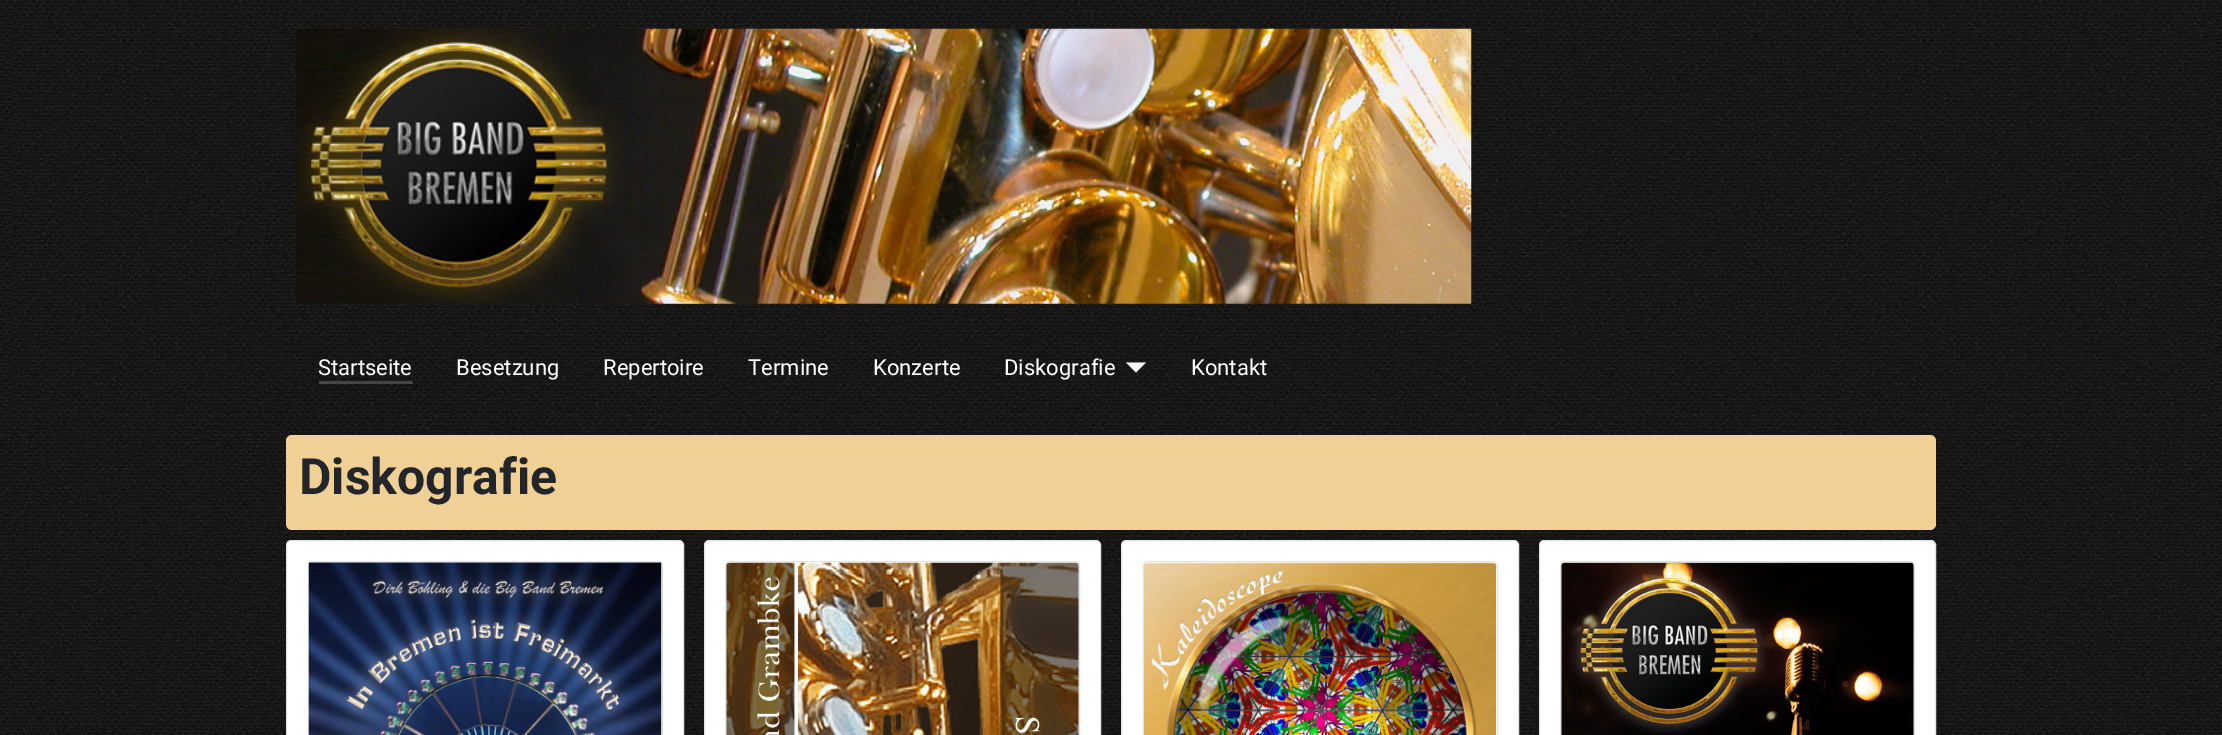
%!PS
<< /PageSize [2222 735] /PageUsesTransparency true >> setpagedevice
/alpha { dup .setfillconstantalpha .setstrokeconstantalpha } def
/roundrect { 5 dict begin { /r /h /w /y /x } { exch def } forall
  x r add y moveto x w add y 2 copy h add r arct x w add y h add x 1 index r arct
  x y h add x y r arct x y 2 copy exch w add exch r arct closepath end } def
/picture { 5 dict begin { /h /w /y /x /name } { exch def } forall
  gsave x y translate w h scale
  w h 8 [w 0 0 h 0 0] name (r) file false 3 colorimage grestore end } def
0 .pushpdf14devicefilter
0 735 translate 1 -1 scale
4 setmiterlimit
1 setgray
0 0 2222 735 rectfill
(img1.rgb) 0 0 2222 735 picture
(img2.rgb) 12 12 2198 403 picture
(img3.rgb) 296 28 1176 276 picture
/Roboto-Regular [22 0 0 -22 0 0] selectfont
318 375 moveto (Startseite) show
0.2 alpha
319 381 94 3 rectfill
1 alpha
456 375 moveto (Besetzung) show
603 375 moveto (Repertoire) show
748 375 moveto (Termine) show
873 375 moveto (Konzerte) show
1004 375 moveto (Diskografie) show
newpath 1126 362.5 moveto 1146 362.5 lineto 1136 372.5 lineto closepath fill
1191 375 moveto (Kontakt) show
0.941 0.816 0.584 setrgbcolor
286 435 1650 95 6 roundrect fill
/Roboto-Bold [50 0 0 -50 0 0] selectfont
0.133 0.149 0.165 setrgbcolor
299 494 moveto (Diskografie) show
1 setgray
286.5 540.5 397 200 4.5 roundrect gsave fill grestore
0.875 0.89 0.906 setrgbcolor
stroke
308.5 561.5 354 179 4.5 roundrect stroke
(img4.rgb) 308 562 354 173 picture
1 setgray
704.5 540.5 396 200 4.5 roundrect gsave fill grestore
0.875 0.89 0.906 setrgbcolor
stroke
725.5 561.5 354 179 4.5 roundrect stroke
(img5.rgb) 726 562 353 173 picture
1 setgray
1121.5 540.5 397 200 4.5 roundrect gsave fill grestore
0.875 0.89 0.906 setrgbcolor
stroke
1143.5 561.5 354 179 4.5 roundrect stroke
(img6.rgb) 1143 562 354 173 picture
1 setgray
1539.5 540.5 396 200 4.5 roundrect gsave fill grestore
0.875 0.89 0.906 setrgbcolor
stroke
1560.5 561.5 354 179 4.5 roundrect stroke
(img7.rgb) 1561 562 353 173 picture
.poppdf14devicefilter showpage
